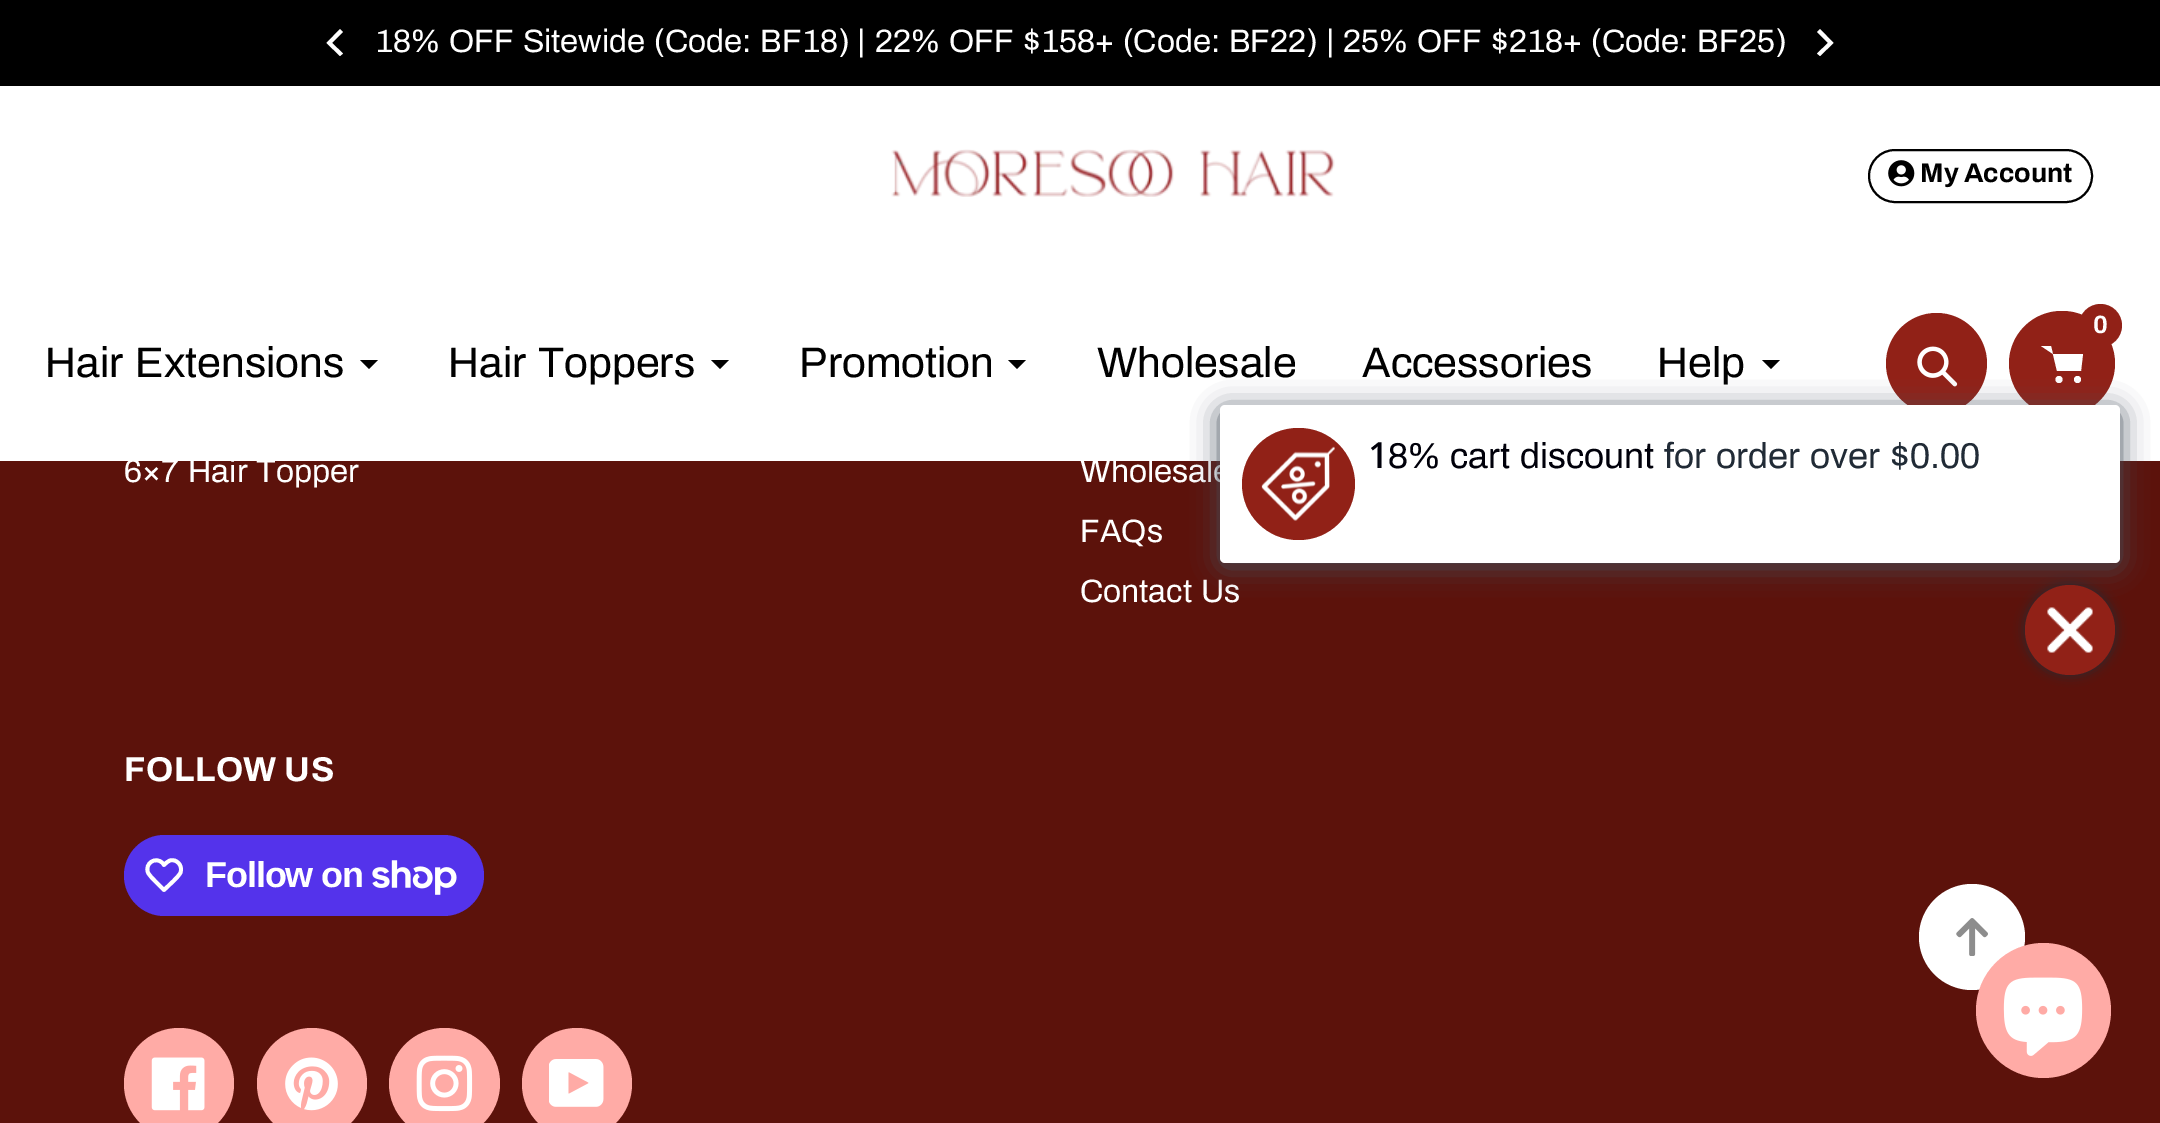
%!PS
<< /PageSize [2160 1123] /PageUsesTransparency true >> setpagedevice
/alpha { dup .setfillconstantalpha .setstrokeconstantalpha } def
/roundrect { 5 dict begin { /r /h /w /y /x } { exch def } forall
  x r add y moveto x w add y 2 copy h add r arct x w add y h add x 1 index r arct
  x y h add x y r arct x y 2 copy exch w add exch r arct closepath end } def
/shadow { 12 dict begin { /a /b /q /h /w /y /x } { exch def } forall gsave /was 0 def
  9 -2 -9 { dup b mul 4 div /e exch def 1 sub .425 mul 2.718 exch exp 1 add a .99 .min exch div /now exch def
    1 1 now sub 1 was sub div sub alpha /was now def
    w h .min e 2 mul add 0 gt { x e sub y e sub w e 2 mul add h e 2 mul add
      q e add b .6 mul add w h .min 2 div e add .min 0 .max roundrect fill } if } for grestore end } def
/picture { 5 dict begin { /h /w /y /x /name } { exch def } forall
  gsave x y translate w h scale
  w h 8 [w 0 0 h 0 0] name (r) file false 3 colorimage grestore end } def
0 .pushpdf14devicefilter
0 1123 translate 1 -1 scale
4 setmiterlimit
0.361 0.071 0.043 setrgbcolor
0 0 2160 1123 rectfill
1 setgray
0 86 2160 375 rectfill
0 setgray
0 0 2160 86 rectfill
1 setgray
newpath 326.5 43 moveto 340 56 lineto 343 53.5 lineto 332 43 lineto 343 32 lineto 340 29 lineto closepath fill
/Archivo-Regular [32.4 0 0 -32.4 0 0] selectfont
375 52 moveto (18% OFF Sitewide \(Code: BF18\) | 22% OFF $158+ \(Code: BF22\) | 25% OFF $218+ \(Code: BF25\)) show
newpath 1833.5 43 moveto 1820 29 lineto 1817 32 lineto 1828 43 lineto 1817 53.5 lineto 1820 56 lineto closepath fill
(img1.rgb) 891 149 444 48 picture
0 setgray
2 setlinewidth
1869 150 223 52 26 roundrect stroke
(img2.rgb) 1888 160 27 27 picture
/Archivo-Bold [27 0 0 -27 0 0] selectfont
1920 182 moveto (My Account) show
0.569 0.129 0.09 setrgbcolor
newpath 1936.5 363.5 50.5 0 360 arc closepath fill
(img3.rgb) 1917 346 41 41 picture
2009 311 106 105 52.5 roundrect fill
1 setgray
newpath 2053 354 moveto 2083 354 lineto 2081 371 lineto 2057 371 lineto 2051 346 lineto 2041 346 lineto eofill
0.569 0.129 0.09 setrgbcolor
newpath 2100.5 325.5 21.5 0 360 arc closepath fill
/Archivo-Bold [25 0 0 -25 0 0] selectfont
1 setgray
2093 333 moveto (0) show
newpath 2059 379.5 3.5 0 360 arc closepath fill
newpath 2077.5 379.5 3.5 0 360 arc closepath fill
/Archivo-Regular [42.75 0 0 -42.75 0 0] selectfont
0 setgray
45 377 moveto (Hair Extensions) show
newpath 378 360 moveto 369 369 lineto 360 360 lineto fill
448 377 moveto (Hair Toppers) show
newpath 729 360 moveto 720 369 lineto 711 360 lineto fill
799 377 moveto (Promotion) show
newpath 1026 360 moveto 1017 369 lineto 1008 360 lineto fill
1097 377 moveto (Wholesale) show
1362 377 moveto (Accessories) show
1657 377 moveto (Help) show
newpath 1780 360 moveto 1771 369 lineto 1762 360 lineto fill
/Archivo-Regular [32.4 0 0 -32.4 0 0] selectfont
1 setgray
124 482 moveto (6×7 Hair Topper) show
1080 482 moveto (Wholesale) show
1080 542 moveto (FAQs) show
1080 602 moveto (Contact Us) show
/Archivo-Bold [34.5 0 0 -34.5 0 0] selectfont
124 781 moveto 0.5 0 (FOLLOW US) ashow
0.329 0.2 0.922 setrgbcolor
124 835 360 81 40.5 roundrect fill
1 setgray
3.8 setlinewidth
1 setlinejoin
newpath 162.5 863 moveto 164 865 lineto 166 863 167.5 861.5 170 860.5 curveto 176.5 858.5 183 865.5 180.5 872.5 curveto 179.5 875.5 176 878 174 880.5 curveto 164 890 lineto 154.5 880.5 lineto 152.5 878 149.5 876 148 872.5 curveto 144.5 863.5 155.5 856 162.5 863 curveto closepath stroke
/LiberationSans-Bold [36 0 0 -36 0 0] selectfont
205 887 moveto -1.1 0 (Follow on) ashow
(img4.rgb) 372 860 85 35 picture
1 0.671 0.651 setrgbcolor
124 1028 110 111 55 roundrect fill
(img5.rgb) 151 1057 54 54 picture
257 1028 110 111 55 roundrect fill
(img6.rgb) 285 1057 53 54 picture
newpath 444.5 1083.5 55.5 0 360 arc closepath fill
(img7.rgb) 416 1055 57 57 picture
522 1028 110 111 55 roundrect fill
(img8.rgb) 549 1059 55 48 picture
0.271 0.31 0.357 setrgbcolor
1220 410 900 157 5 13.5 1 shadow
1 setgray
1220 405 900 158 5 roundrect fill
0.569 0.129 0.09 setrgbcolor
1242 428 113 112 56 roundrect fill
(img9.rgb) 1261 446 74 75 picture
/NotoSans-Medium [36 0 0 -36 0 0] selectfont
0 0 0.039 setrgbcolor
1368 468 moveto (1) show
/Archivo-Regular [36 0 0 -36 0 0] selectfont
1388 468 moveto (8% cart discount) show
0.129 0.169 0.212 setrgbcolor
1664 468 moveto (for order over $0.00) show
2025 585 90 90 45 5.5 1 shadow
0.569 0.129 0.09 setrgbcolor
newpath 2070 630 45 0 360 arc closepath fill
(img10.rgb) 2047 607 46 46 picture
1 setgray
newpath 1972 937 53 0 360 arc closepath fill
(img11.rgb) 1956 918 32 38 picture
1 0.671 0.651 setrgbcolor
newpath 2043.5 1010.5 67.5 0 360 arc closepath fill
(img12.rgb) 2003 977 80 79 picture
.poppdf14devicefilter showpage
